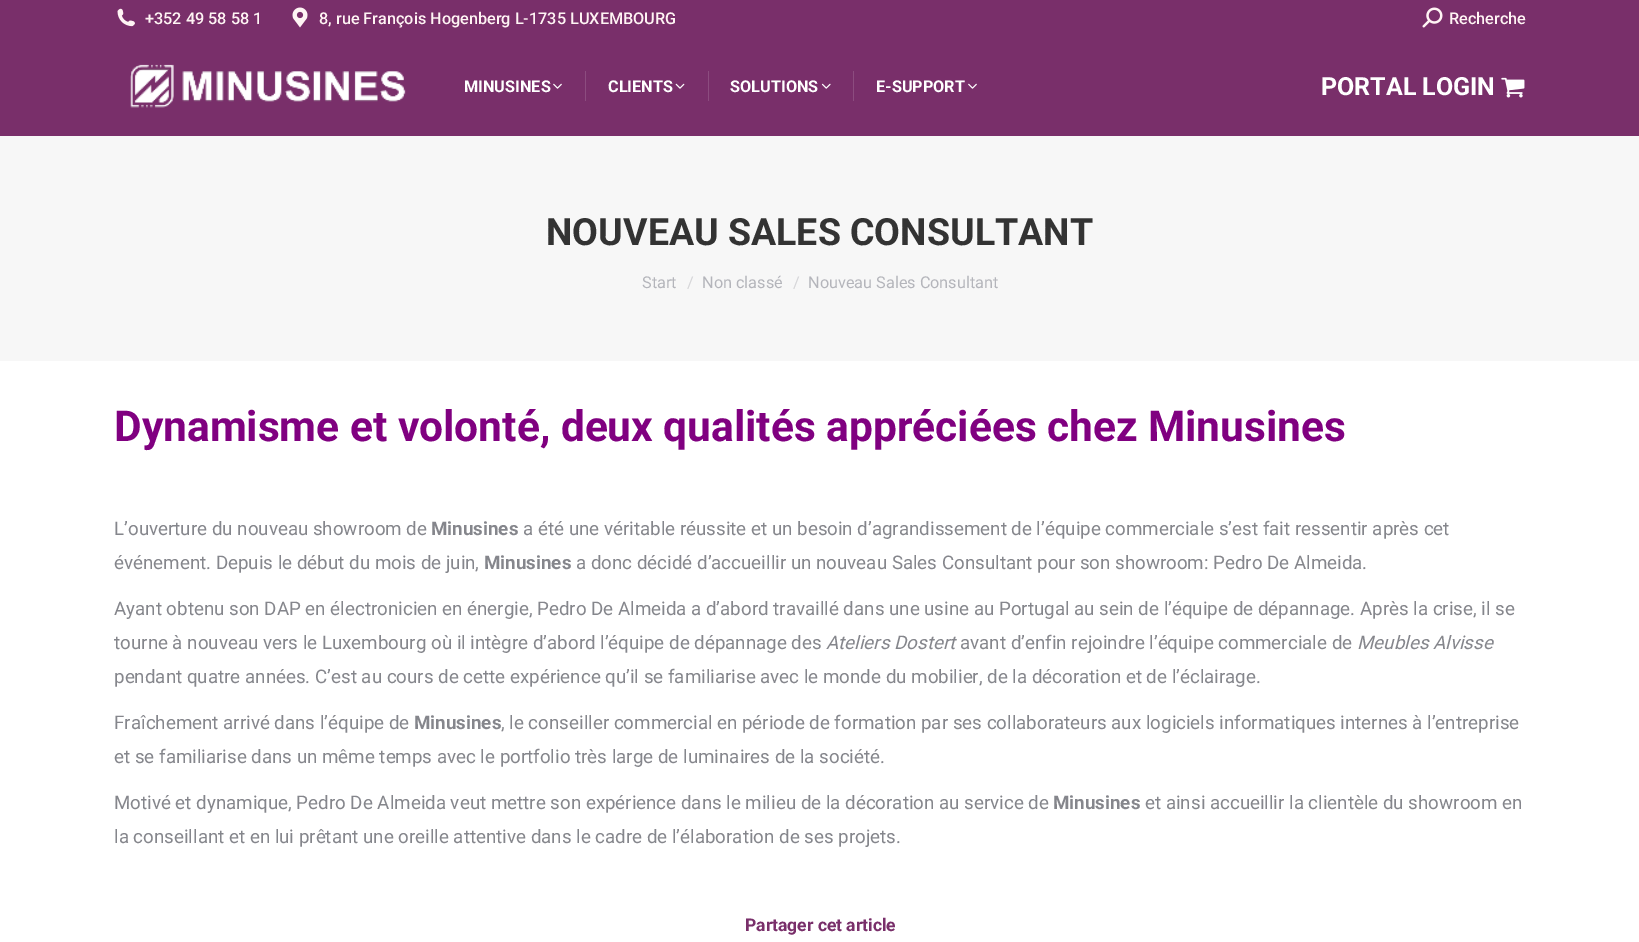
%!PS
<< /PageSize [1639 942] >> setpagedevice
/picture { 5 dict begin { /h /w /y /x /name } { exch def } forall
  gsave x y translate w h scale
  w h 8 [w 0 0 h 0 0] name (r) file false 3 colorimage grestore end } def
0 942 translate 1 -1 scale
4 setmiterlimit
1 setgray
0 0 1639 942 rectfill
0.475 0.184 0.416 setrgbcolor
0 0 1639 136 rectfill
(img1.rgb) 117 8 18 19 picture
/Roboto-Medium [16.25 0 0 -16.25 0 0] selectfont
1 0.957 0.957 setrgbcolor
145 24 moveto (+352 49 58 58 1) show
(img2.rgb) 292 7 16 21 picture
319 24 moveto (8, rue François Hogenberg L-1735 LUXEMBOURG) show
(img3.rgb) 1422 7 21 21 picture
1449 24 moveto (Recherche) show
(img4.rgb) 130 64 276 44 picture
/Roboto-Bold [16.25 0 0 -16.25 0 0] selectfont
1 setgray
464 92 moveto (MINUSINES) show
(img5.rgb) 553 83 9 6 picture
0.549 0.298 0.498 setrgbcolor
585 71 1 30 rectfill
1 setgray
608 92 moveto (CLIENTS) show
(img6.rgb) 675 83 10 6 picture
0.549 0.298 0.498 setrgbcolor
708 71 1 30 rectfill
1 setgray
730 92 moveto (SOLUTIONS) show
(img7.rgb) 821 83 10 6 picture
0.549 0.298 0.498 setrgbcolor
853 71 1 30 rectfill
1 setgray
876 92 moveto (E-SUPPORT) show
(img5.rgb) 968 83 9 6 picture
/Roboto-Bold [25 0 0 -25 0 0] selectfont
1321 95 moveto (PORTAL LOGIN) show
(img8.rgb) 1501 77 24 21 picture
0.969 setgray
0 136 1639 225 rectfill
/Roboto-Bold [37.5 0 0 -37.5 0 0] selectfont
0.2 setgray
546 245 moveto (NOUVEAU SALES CONSULTANT) show
/Roboto-Regular [16.25 0 0 -16.25 0 0] selectfont
0.706 0.71 0.733 setrgbcolor
642 288 moveto (Start) show
0.839 0.839 0.851 setrgbcolor
687 288 moveto (/) show
0.706 0.71 0.733 setrgbcolor
702 288 moveto (Non classé) show
0.839 0.839 0.851 setrgbcolor
793 288 moveto (/) show
0.706 0.71 0.733 setrgbcolor
808 288 moveto (Nouveau Sales Consultant) show
/Roboto-Bold [42.5 0 0 -42.5 0 0] selectfont
0.502 0 0.502 setrgbcolor
114 441 moveto (Dynamisme et volonté, deux qualités appréciées chez Minusines) show
/Roboto-Regular [18.75 0 0 -18.75 0 0] selectfont
0.522 0.525 0.549 setrgbcolor
114 535 moveto (L’ouverture du nouveau showroom de) show
/Roboto-Bold [18.75 0 0 -18.75 0 0] selectfont
431 535 moveto (Minusines) show
/Roboto-Regular [18.75 0 0 -18.75 0 0] selectfont
523 535 moveto (a été une véritable réussite et un besoin d’agrandissement de l’équipe commerciale s’est fait ressentir après cet) show
114 569 moveto (événement. Depuis le début du mois de juin,) show
/Roboto-Bold [18.75 0 0 -18.75 0 0] selectfont
484 569 moveto (Minusines) show
/Roboto-Regular [18.75 0 0 -18.75 0 0] selectfont
576 569 moveto (a donc décidé d’accueillir un nouveau Sales Consultant pour son showroom: Pedro De Almeida.) show
114 615 moveto (Ayant obtenu son DAP en électronicien en énergie, Pedro De Almeida a d’abord travaillé dans une usine au Portugal au sein de l’équipe de dépannage. Après la crise, il se) show
114 649 moveto (tourne à nouveau vers le Luxembourg où il intègre d’abord l’équipe de dépannage des) show
/Roboto-Italic [18.75 0 0 -18.75 0 0] selectfont
826 649 moveto (Ateliers Dostert) show
/Roboto-Regular [18.75 0 0 -18.75 0 0] selectfont
960 649 moveto (avant d’enfin rejoindre l’équipe commerciale de) show
/Roboto-Italic [18.75 0 0 -18.75 0 0] selectfont
1357 649 moveto (Meubles Alvisse) show
/Roboto-Regular [18.75 0 0 -18.75 0 0] selectfont
114 683 moveto (pendant quatre années. C’est au cours de cette expérience qu’il se familiarise avec le monde du mobilier, de la décoration et de l’éclairage.) show
114 729 moveto (Fraîchement arrivé dans l’équipe de) show
/Roboto-Bold [18.75 0 0 -18.75 0 0] selectfont
414 729 moveto (Minusines) show
/Roboto-Regular [18.75 0 0 -18.75 0 0] selectfont
501 729 moveto (, le conseiller commercial en période de formation par ses collaborateurs aux logiciels informatiques internes à l’entreprise) show
114 763 moveto (et se familiarise dans un même temps avec le portfolio très large de luminaires de la société.) show
114 809 moveto (Motivé et dynamique, Pedro De Almeida veut mettre son expérience dans le milieu de la décoration au service de) show
/Roboto-Bold [18.75 0 0 -18.75 0 0] selectfont
1053 809 moveto (Minusines) show
/Roboto-Regular [18.75 0 0 -18.75 0 0] selectfont
1145 809 moveto (et ainsi accueillir la clientèle du showroom en) show
114 843 moveto (la conseillant et en lui prêtant une oreille attentive dans le cadre de l’élaboration de ses projets.) show
/Roboto-Bold [17.5 0 0 -17.5 0 0] selectfont
0.475 0.184 0.416 setrgbcolor
745 931 moveto (Partager cet article) show
showpage
